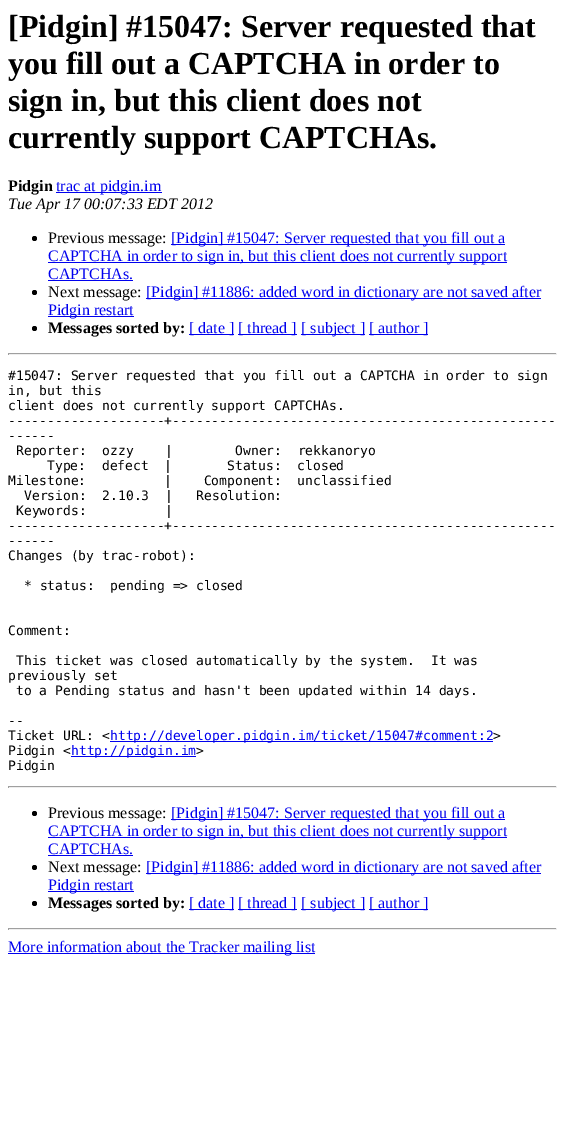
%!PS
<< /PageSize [565 1123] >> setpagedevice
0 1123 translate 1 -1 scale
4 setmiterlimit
1 setgray
0 0 565 1123 rectfill
/LiberationSerif-Bold [32 0 0 -32 0 0] selectfont
0 setgray
8 37 moveto ([Pidgin] #15047: Server requested that) show
8 74 moveto (you fill out a CAPTCHA in order to) show
8 111 moveto (sign in, but this client does not) show
8 148 moveto (currently support CAPTCHAs.) show
/LiberationSerif-Bold [16 0 0 -16 0 0] selectfont
8 191 moveto (Pidgin) show
0 0 0.933 setrgbcolor
56 192 106 1 rectfill
/LiberationSerif-Regular [16 0 0 -16 0 0] selectfont
56 191 moveto (trac at pidgin.im) show
/LiberationSerif-Italic [16 0 0 -16 0 0] selectfont
0 setgray
8 209 moveto (Tue Apr 17 00:07:33 EDT 2012) show
newpath 34.5 238.5 2.5 0 360 arc closepath fill
/LiberationSerif-Regular [16 0 0 -16 0 0] selectfont
48 243 moveto (Previous message:) show
0 0 0.933 setrgbcolor
171 244 334 1 rectfill
171 243 moveto ([Pidgin] #15047: Server requested that you fill out a) show
48 262 459 1 rectfill
48 261 moveto (CAPTCHA in order to sign in, but this client does not currently support) show
48 279 moveto (CAPTCHAs.) show
48 280 85 1 rectfill
0 setgray
newpath 34.5 292.5 2.5 0 360 arc closepath fill
48 297 moveto (Next message:) show
0 0 0.933 setrgbcolor
146 298 395 1 rectfill
146 297 moveto ([Pidgin] #11886: added word in dictionary are not saved after) show
48 316 86 1 rectfill
48 315 moveto (Pidgin restart) show
0 setgray
newpath 34.5 328.5 2.5 0 360 arc closepath fill
/LiberationSerif-Bold [16 0 0 -16 0 0] selectfont
48 333 moveto (Messages sorted by:) show
0 0 0.933 setrgbcolor
189 334 45 1 rectfill
/LiberationSerif-Regular [16 0 0 -16 0 0] selectfont
189 333 moveto ([ date ]) show
238 334 59 1 rectfill
238 333 moveto ([ thread ]) show
301 334 64 1 rectfill
301 333 moveto ([ subject ]) show
369 334 59 1 rectfill
369 333 moveto ([ author ]) show
0.624 setgray
8 353 549 1 rectfill
0.933 setgray
556 353 1 2 rectfill
8 354 549 1 rectfill
0.624 setgray
8 353 1 2 rectfill
/DejaVuSansMono-Regular [13 0 0 -13 0 0] selectfont
0 setgray
8 380 moveto (#15047: Server requested that you fill out a CAPTCHA in order to sign) show
8 395 moveto (in, but this) show
8 410 moveto (client does not currently support CAPTCHAs.) show
8 425 moveto (--------------------+-------------------------------------------------) show
8 440 moveto (------) show
16 455 moveto (Reporter:  ozzy    |        Owner:  rekkanoryo) show
47 470 moveto (Type:  defect  |       Status:  closed) show
8 485 moveto (Milestone:          |    Component:  unclassified) show
24 500 moveto (Version:  2.10.3  |   Resolution:) show
16 515 moveto (Keywords:          |) show
8 530 moveto (--------------------+-------------------------------------------------) show
8 545 moveto (------) show
8 560 moveto (Changes \(by trac-robot\):) show
24 590 moveto (* status:  pending => closed) show
8 635 moveto (Comment:) show
16 665 moveto (This ticket was closed automatically by the system.  It was) show
8 680 moveto (previously set) show
16 695 moveto (to a Pending status and hasn't been updated within 14 days.) show
8 725 moveto (--) show
8 740 moveto (Ticket URL: <) show
0 0 0.933 setrgbcolor
110 741 383 1 rectfill
110 740 moveto (http://developer.pidgin.im/ticket/15047#comment:2) show
0 setgray
493 740 moveto (>) show
8 755 moveto (Pidgin <) show
0 0 0.933 setrgbcolor
71 756 125 1 rectfill
71 755 moveto (http://pidgin.im) show
0 setgray
196 755 moveto (>) show
8 770 moveto (Pidgin) show
0.624 setgray
8 786 549 1 rectfill
0.933 setgray
556 786 1 2 rectfill
8 787 549 1 rectfill
0.624 setgray
8 786 1 2 rectfill
0 setgray
newpath 34.5 813.5 2.5 0 360 arc closepath fill
/LiberationSerif-Regular [16 0 0 -16 0 0] selectfont
48 818 moveto (Previous message:) show
0 0 0.933 setrgbcolor
171 819 334 1 rectfill
171 818 moveto ([Pidgin] #15047: Server requested that you fill out a) show
48 837 459 1 rectfill
48 836 moveto (CAPTCHA in order to sign in, but this client does not currently support) show
48 854 moveto (CAPTCHAs.) show
48 855 85 1 rectfill
0 setgray
newpath 34.5 867.5 2.5 0 360 arc closepath fill
48 872 moveto (Next message:) show
0 0 0.933 setrgbcolor
146 873 395 1 rectfill
146 872 moveto ([Pidgin] #11886: added word in dictionary are not saved after) show
48 891 86 1 rectfill
48 890 moveto (Pidgin restart) show
0 setgray
newpath 34.5 903.5 2.5 0 360 arc closepath fill
/LiberationSerif-Bold [16 0 0 -16 0 0] selectfont
48 908 moveto (Messages sorted by:) show
0 0 0.933 setrgbcolor
189 909 45 1 rectfill
/LiberationSerif-Regular [16 0 0 -16 0 0] selectfont
189 908 moveto ([ date ]) show
238 909 59 1 rectfill
238 908 moveto ([ thread ]) show
301 909 64 1 rectfill
301 908 moveto ([ subject ]) show
369 909 59 1 rectfill
369 908 moveto ([ author ]) show
0.624 setgray
8 928 549 1 rectfill
0.933 setgray
556 928 1 2 rectfill
8 929 549 1 rectfill
0.624 setgray
8 928 1 2 rectfill
0 0 0.933 setrgbcolor
8 953 307 1 rectfill
8 952 moveto (More information about the Tracker mailing list) show
showpage
